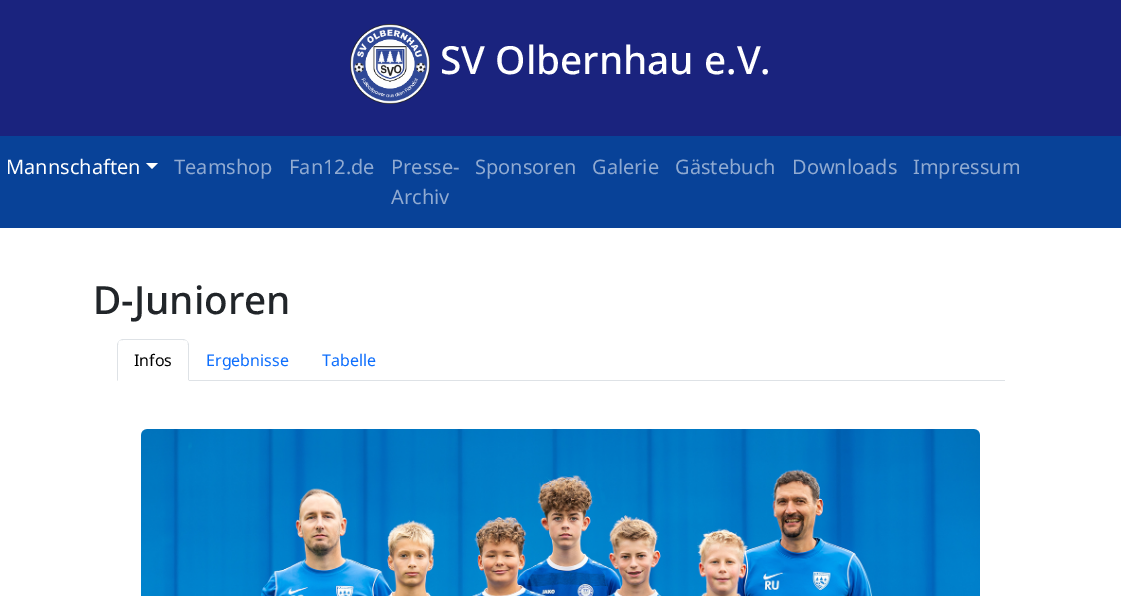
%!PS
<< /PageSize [1121 596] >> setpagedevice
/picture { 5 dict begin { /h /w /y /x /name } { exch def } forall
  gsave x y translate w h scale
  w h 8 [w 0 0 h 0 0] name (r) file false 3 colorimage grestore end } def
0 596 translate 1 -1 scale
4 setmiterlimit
1 setgray
0 0 1121 596 rectfill
0.102 0.137 0.494 setrgbcolor
0 0 1121 136 rectfill
(img1.rgb) 350 24 80 80 picture
/NotoSans-Medium [38.75 0 0 -38.75 0 0] selectfont
1 setgray
440 74 moveto (SV Olbernhau e.V.) show
0.031 0.259 0.596 setrgbcolor
0 136 1121 92 rectfill
/NotoSans-Regular [20 0 0 -20 0 0] selectfont
1 setgray
6 174 moveto (Mannschaften) show
newpath 146 163 moveto 158 163 lineto 152 169 lineto closepath fill
0.565 0.667 0.82 setrgbcolor
174 174 moveto (Teamshop) show
289 174 moveto (Fan12.de) show
391 174 moveto (Presse-) show
391 204 moveto (Archiv) show
475 174 moveto (Sponsoren) show
592 174 moveto (Galerie) show
675 174 moveto (Gästebuch) show
792 174 moveto (Downloads) show
913 174 moveto (Impressum) show
/NotoSans-Medium [38.75 0 0 -38.75 0 0] selectfont
0.129 0.145 0.161 setrgbcolor
93 314 moveto (D-Junioren) show
0.871 0.886 0.902 setrgbcolor
189 380 816 1 rectfill
newpath 123 339 moveto 122 339 120 340 119 341 curveto 120 340 122 340 123 340 curveto 183 340 lineto 184 340 186 340 187 341 curveto 186 340 184 339 183 339 curveto closepath fill
newpath 189 381 moveto 189 345 lineto 189 344 188 342 187 341 curveto 188 342 188 344 188 345 curveto 188 380 lineto closepath fill
1 setgray
newpath 189 381 moveto 188 380 lineto 118 380 lineto 117 381 lineto closepath fill
0.871 0.886 0.902 setrgbcolor
newpath 117 381 moveto 118 380 lineto 118 345 lineto 118 344 118 342 119 341 curveto 118 342 117 344 117 345 curveto closepath fill
/NotoSans-Regular [16 0 0 -16 0 0] selectfont
0 setgray
134 366 moveto (Infos) show
0.051 0.431 0.992 setrgbcolor
206 366 moveto (Ergebnisse) show
322 366 moveto (Tabelle) show
(img2.rgb) 141 429 839 167 picture
showpage
